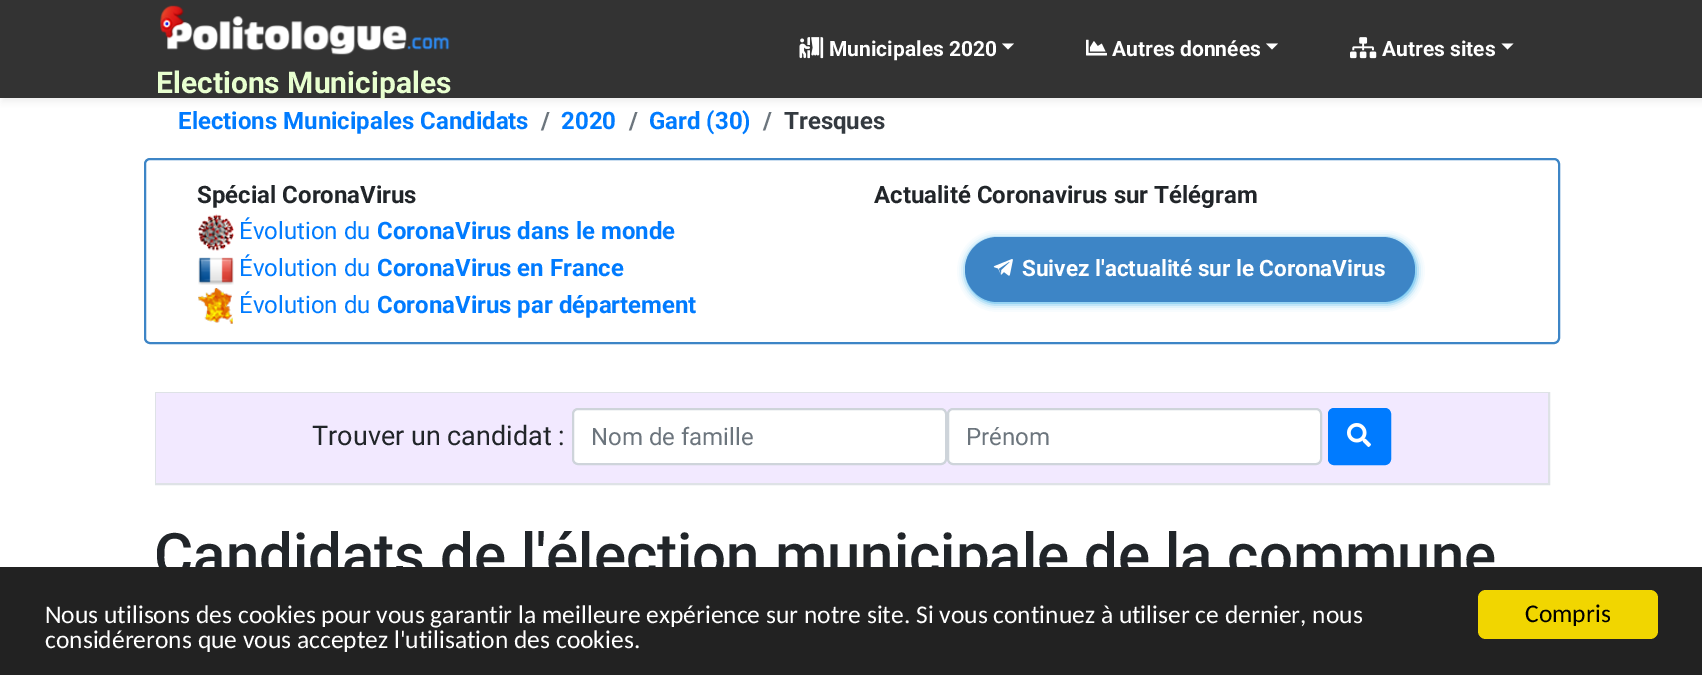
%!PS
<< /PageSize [1702 675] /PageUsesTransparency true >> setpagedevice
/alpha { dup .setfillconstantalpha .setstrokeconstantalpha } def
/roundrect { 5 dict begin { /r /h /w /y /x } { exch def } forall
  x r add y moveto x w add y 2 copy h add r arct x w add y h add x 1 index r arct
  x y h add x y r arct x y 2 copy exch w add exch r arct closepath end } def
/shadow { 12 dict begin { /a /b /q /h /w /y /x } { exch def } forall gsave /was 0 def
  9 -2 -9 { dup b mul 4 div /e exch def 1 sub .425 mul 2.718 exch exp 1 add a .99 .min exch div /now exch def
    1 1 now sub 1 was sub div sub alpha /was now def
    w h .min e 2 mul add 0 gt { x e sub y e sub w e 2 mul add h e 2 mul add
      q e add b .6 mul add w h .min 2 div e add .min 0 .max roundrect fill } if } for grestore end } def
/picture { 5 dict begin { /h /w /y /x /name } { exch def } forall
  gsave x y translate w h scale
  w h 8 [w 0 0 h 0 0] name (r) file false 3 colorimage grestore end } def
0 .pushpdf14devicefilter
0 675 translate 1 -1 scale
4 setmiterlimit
1 setgray
0 0 1702 675 rectfill
0.678 setgray
2 5 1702 97 0 3 0.2 shadow
0.2 setgray
0 0 1702 98 rectfill
(img1.rgb) 799 37 25 22 picture
/Roboto-Bold [21 0 0 -21 0 0] selectfont
1 setgray
829 56 moveto (Municipales 2020) show
newpath 1002 43.5 moveto 1014 43.5 lineto 1008 49.5 lineto closepath fill
(img2.rgb) 1086 39 21 17 picture
1112 56 moveto (Autres données) show
newpath 1266 43.5 moveto 1278 43.5 lineto 1272 49.5 lineto closepath fill
(img3.rgb) 1350 37 27 22 picture
1382 56 moveto (Autres sites) show
newpath 1501.5 43.5 moveto 1513.5 43.5 lineto 1507.5 49.5 lineto closepath fill
(img4.rgb) 160 5 290 50 picture
/Roboto-Bold [30 0 0 -30 0 0] selectfont
0.91 1 0.816 setrgbcolor
156 93 moveto (Elections Municipales) show
/Roboto-Bold [24 0 0 -24 0 0] selectfont
0 0.482 1 setrgbcolor
178 129 moveto (Elections Municipales Candidats) show
0.424 0.459 0.49 setrgbcolor
541 129 moveto (/) show
0 0.482 1 setrgbcolor
561 129 moveto (2020) show
0.424 0.459 0.49 setrgbcolor
629 129 moveto (/) show
0 0.482 1 setrgbcolor
649 129 moveto (Gard \(30\)) show
0.424 0.459 0.49 setrgbcolor
763 129 moveto (/) show
0.204 0.227 0.251 setrgbcolor
784 129 moveto (Tresques) show
0.239 0.522 0.776 setrgbcolor
2 setlinewidth
145 159 1414 184 5 roundrect stroke
0.129 0.145 0.161 setrgbcolor
197 203 moveto (Spécial CoronaVirus) show
(img5.rgb) 198 214 36 37 picture
/Roboto-Regular [24 0 0 -24 0 0] selectfont
0 0.482 1 setrgbcolor
239 239 moveto (Évolution du) show
/Roboto-Bold [24 0 0 -24 0 0] selectfont
377 239 moveto (CoronaVirus dans le monde) show
(img6.rgb) 198 257 36 28 picture
/Roboto-Regular [24 0 0 -24 0 0] selectfont
239 276 moveto (Évolution du) show
/Roboto-Bold [24 0 0 -24 0 0] selectfont
377 276 moveto (CoronaVirus en France) show
(img7.rgb) 198 288 35 36 picture
/Roboto-Regular [24 0 0 -24 0 0] selectfont
239 313 moveto (Évolution du) show
/Roboto-Bold [24 0 0 -24 0 0] selectfont
377 313 moveto (CoronaVirus par département) show
0.129 0.145 0.161 setrgbcolor
874 203 moveto (Actualité Coronavirus sur Télégram) show
0.153 0.647 0.906 setrgbcolor
966 239 450 64 32 4 1 shadow
0.239 0.522 0.776 setrgbcolor
965 237 450 65 32.5 roundrect fill
(img8.rgb) 993 259 20 17 picture
/Roboto-Bold [22.5 0 0 -22.5 0 0] selectfont
1 setgray
1022 276 moveto (Suivez l'actualité sur le CoronaVirus) show
0.871 0.886 0.902 setrgbcolor
156 393 1393 91 rectstroke
0.949 0.914 1 setrgbcolor
156 393 1392 90 rectfill
/Roboto-Regular [27 0 0 -27 0 0] selectfont
0.129 0.145 0.161 setrgbcolor
312 445 moveto (Trouver un candidat :) show
1 setgray
573 409 373 55 5 roundrect gsave fill grestore
0.808 0.831 0.855 setrgbcolor
stroke
/Roboto-Regular [24 0 0 -24 0 0] selectfont
0.424 0.459 0.49 setrgbcolor
591 445 moveto (Nom de famille) show
1 setgray
948 409 373 55 5 roundrect gsave fill grestore
0.808 0.831 0.855 setrgbcolor
stroke
0.424 0.459 0.49 setrgbcolor
966 445 moveto (Prénom) show
0 0.482 1 setrgbcolor
1329 409 61 55 5 roundrect gsave fill grestore
stroke
(img9.rgb) 1347 423 24 24 picture
/Roboto-Medium [60 0 0 -60 0 0] selectfont
0.129 0.145 0.161 setrgbcolor
154 576 moveto (Candidats de l'élection municipale de la commune) show
0.133 setgray
0 567 1702 108 rectfill
/Carlito-Regular [25.5 0 0 -25.5 0 0] selectfont
1 setgray
45 623 moveto (Nous utilisons des cookies pour vous garantir la meilleure expérience sur notre site. Si vous continuez à utiliser ce dernier, nous) show
45 648 moveto (considérerons que vous acceptez l'utilisation des cookies.) show
0.945 0.839 0 setrgbcolor
1478 590 180 49 8 roundrect fill
0 setgray
1525 622 moveto (Compris) show
.poppdf14devicefilter showpage
